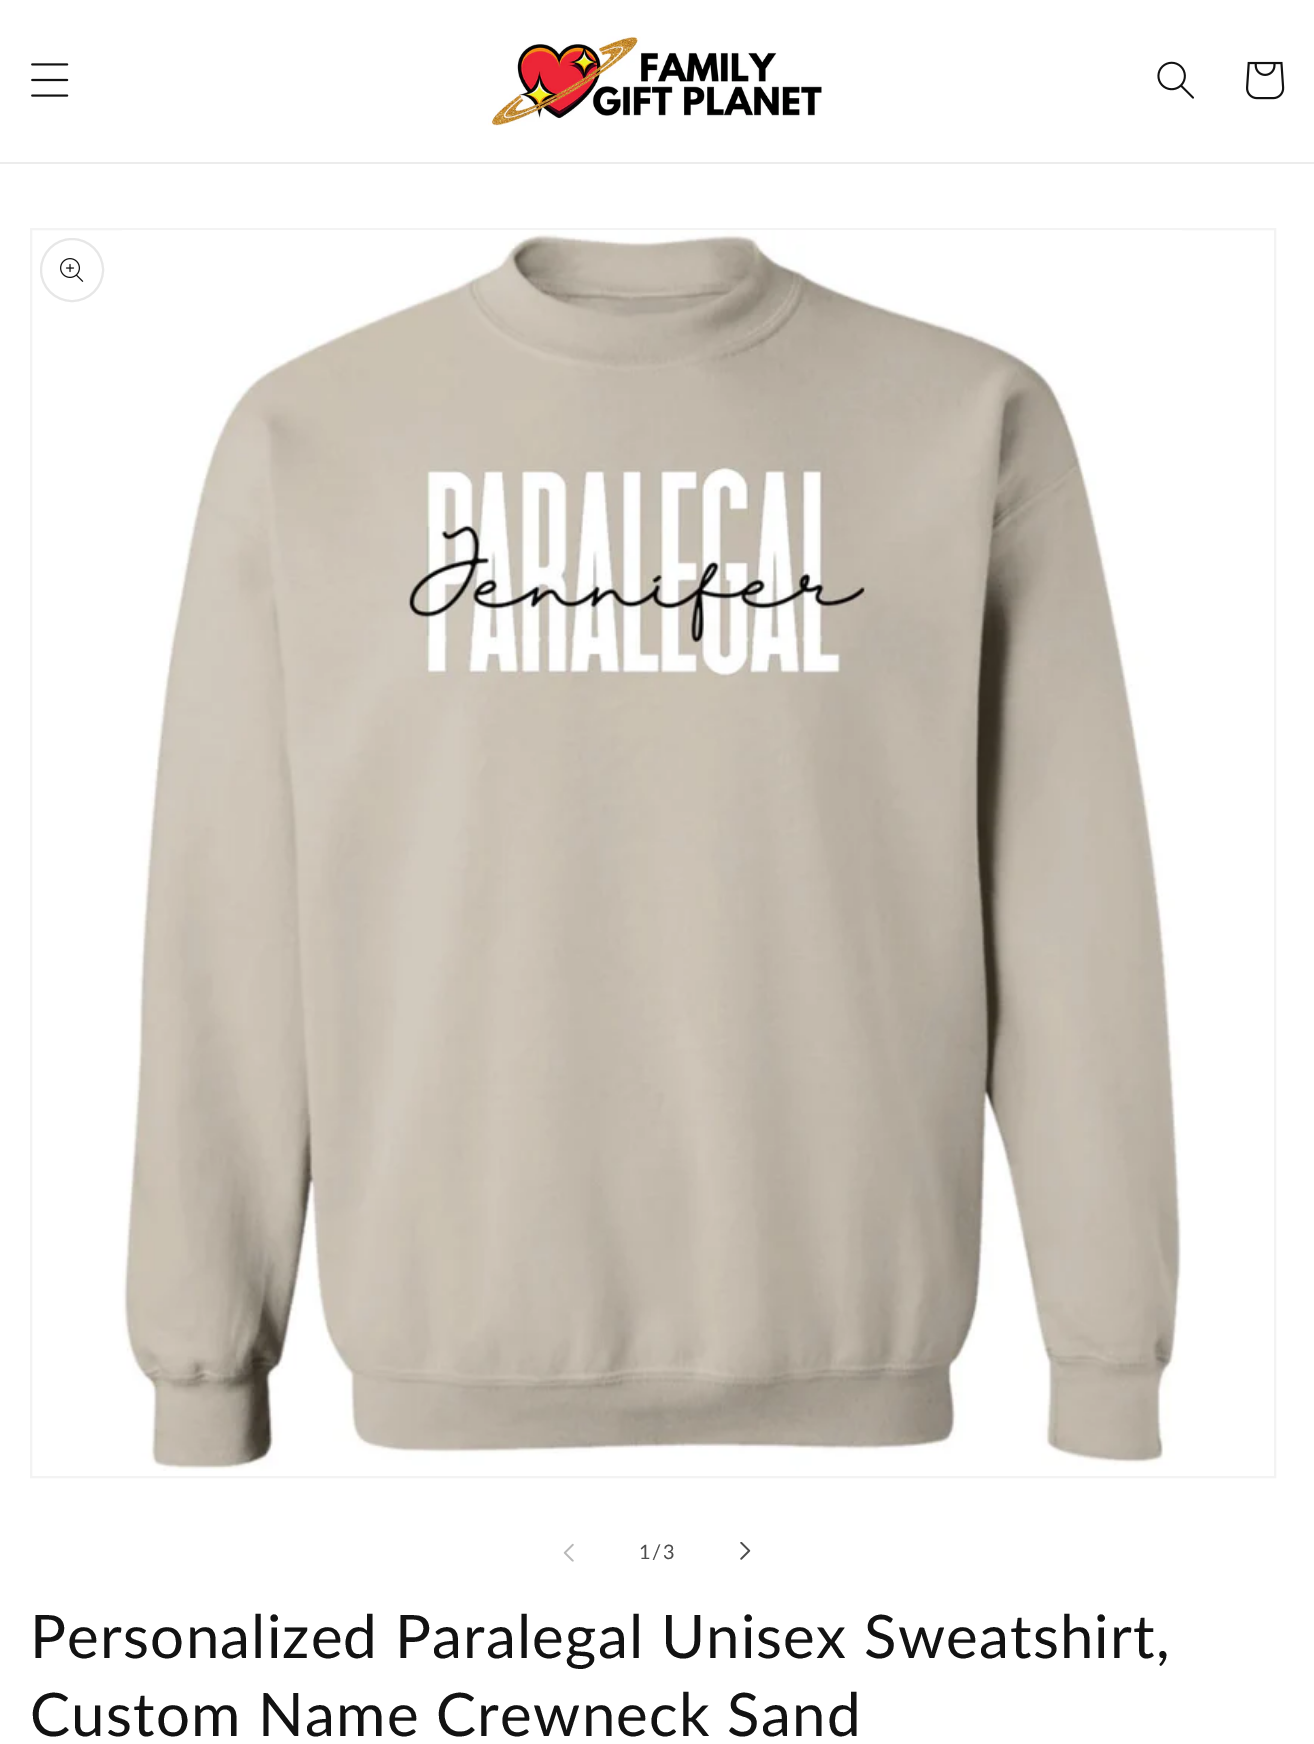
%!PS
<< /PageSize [1314 1744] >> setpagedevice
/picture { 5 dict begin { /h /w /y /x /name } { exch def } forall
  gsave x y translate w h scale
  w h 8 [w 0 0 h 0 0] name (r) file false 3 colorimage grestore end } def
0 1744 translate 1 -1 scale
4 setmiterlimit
1 setgray
0 0 1314 1744 rectfill
0.925 setgray
0 162 1314 2 rectfill
(img1.rgb) 31 63 38 34 picture
(img2.rgb) 488 36 334 90 picture
(img3.rgb) 1157 61 37 38 picture
(img4.rgb) 1246 61 39 39 picture
0.953 setgray
2 setlinewidth
31 229 1244 1248 rectstroke
(img5.rgb) 122 230 1060 1241 picture
0.906 setgray
newpath 72 270 31 0 360 arc closepath stroke
(img6.rgb) 60 258 24 24 picture
(img7.rgb) 563 1543 11 19 picture
/Lato-Regular [20 0 0 -20 0 0] selectfont
0.302 setgray
639 1559 moveto 1.5 0 (1/3) ashow
(img8.rgb) 740 1542 11 18 picture
/Lato-Regular [60 0 0 -60 0 0] selectfont
0.071 setgray
30 1658 moveto 1.2 0 (Personalized Paralegal Unisex Sweatshirt,) ashow
30 1736 moveto 1.2 0 (Custom Name Crewneck Sand) ashow
showpage
